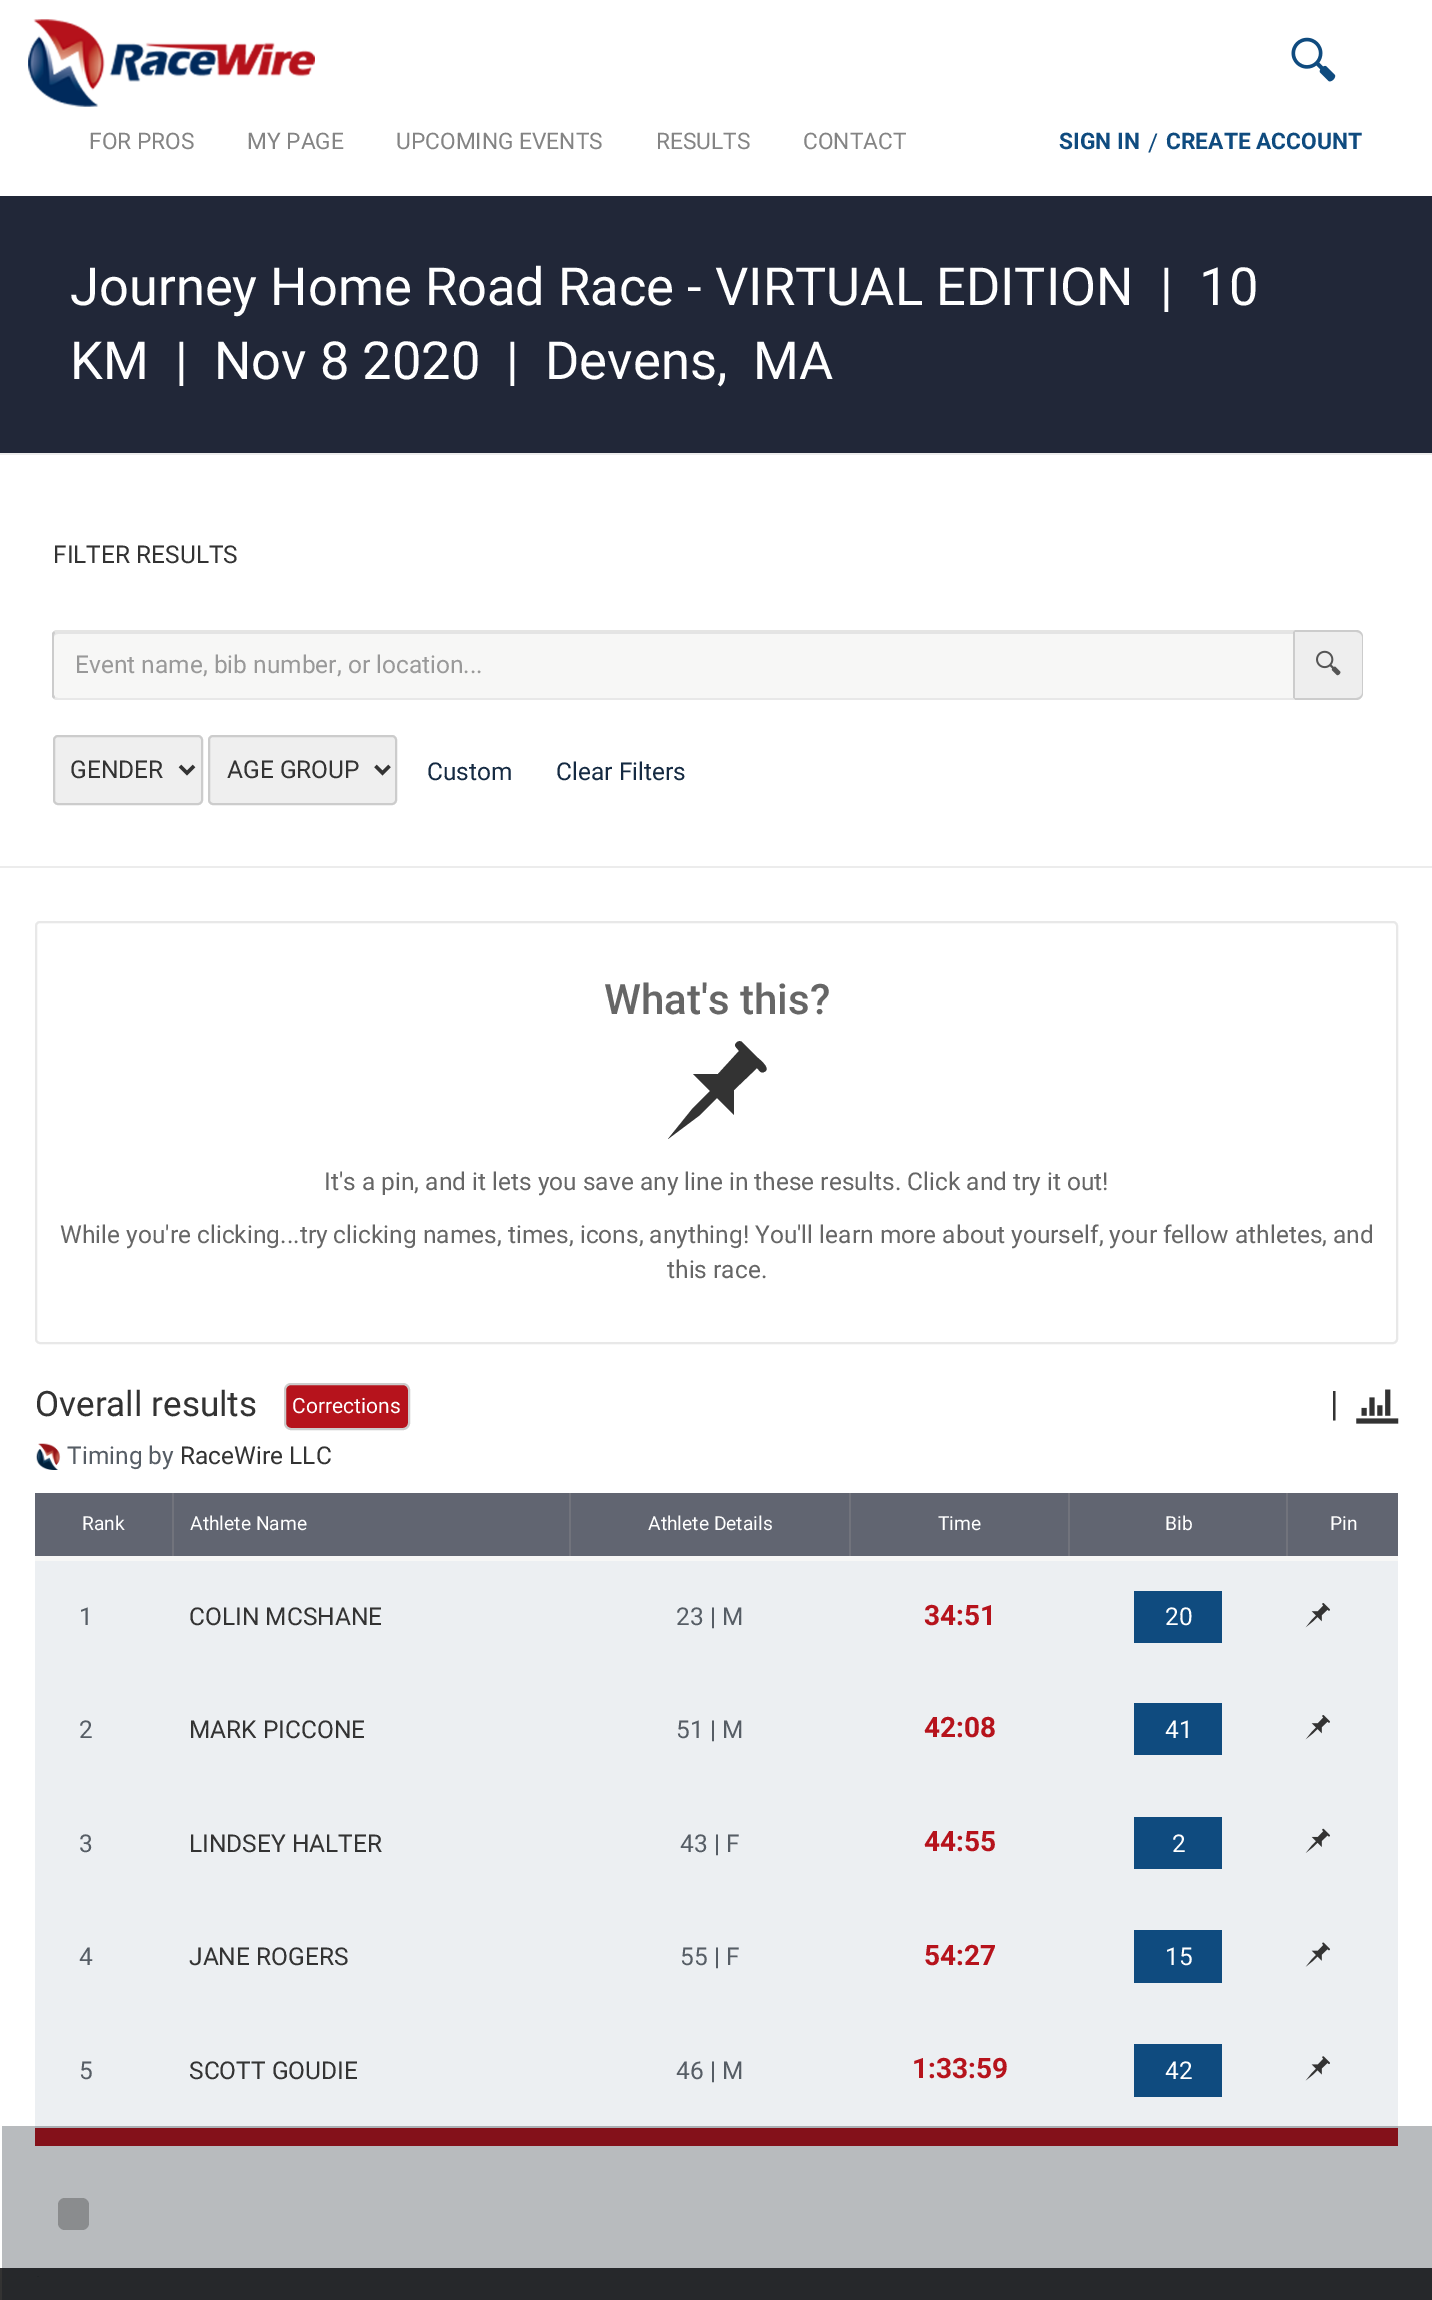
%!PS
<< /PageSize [1432 2300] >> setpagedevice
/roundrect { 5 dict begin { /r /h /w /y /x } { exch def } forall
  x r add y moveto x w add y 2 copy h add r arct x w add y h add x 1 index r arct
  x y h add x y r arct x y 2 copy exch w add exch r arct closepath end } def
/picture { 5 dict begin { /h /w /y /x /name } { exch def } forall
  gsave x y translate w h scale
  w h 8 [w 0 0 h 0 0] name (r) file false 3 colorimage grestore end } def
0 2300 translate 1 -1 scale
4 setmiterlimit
0.129 0.153 0.22 setrgbcolor
0 0 1432 2300 rectfill
1 setgray
0 0 1432 196 rectfill
(img1.rgb) 28 19 287 88 picture
(img2.rgb) 1291 37 45 45 picture
/Roboto-Regular [22.75 0 0 -22.75 0 0] selectfont
0.518 setgray
89 149 moveto (FOR PROS) show
247 149 moveto (MY PAGE) show
396 149 moveto (UPCOMING EVENTS) show
656 149 moveto (RESULTS) show
803 149 moveto (CONTACT) show
/Roboto-Bold [22.75 0 0 -22.75 0 0] selectfont
0.059 0.294 0.498 setrgbcolor
1059 149 moveto (SIGN IN) show
/Roboto-Regular [24.5 0 0 -24.5 0 0] selectfont
1148 151 moveto (/) show
/Roboto-Bold [22.75 0 0 -22.75 0 0] selectfont
1166 149 moveto (CREATE ACCOUNT) show
/Roboto-Regular [52.5 0 0 -52.5 0 0] selectfont
1 setgray
70 305 moveto (Journey Home Road Race - VIRTUAL EDITION) show
1160 305 moveto (|) show
1199 305 moveto (10) show
70 379 moveto (KM) show
175 379 moveto (|) show
214 379 moveto (Nov 8 2020) show
506 379 moveto (|) show
545 379 moveto (Devens,) show
753 379 moveto (MA) show
0 455 1432 411 rectfill
0.925 setgray
0 453 1432 2 rectfill
0 866 1432 2 rectfill
/Roboto-Regular [24.5 0 0 -24.5 0 0] selectfont
0.2 setgray
53 563 moveto (FILTER RESULTS) show
0.969 0.969 0.965 setrgbcolor
newpath 58 630 moveto 1295 630 lineto 1295 700 lineto 58 700 lineto 55 700 53 698 53 695 curveto 53 635 lineto 53 632 55 630 58 630 curveto closepath fill
0.894 setgray
newpath 58 634 moveto 1293 634 lineto 1293 632 lineto 58 632 lineto 55 632 54 634 54 637 curveto 54 635 56 634 58 634 curveto closepath fill
0.898 0.898 0.894 setrgbcolor
newpath 58 630 moveto 56 630 55 630 54 631 curveto 55 633 lineto 58 632 lineto 1293 632 lineto 1295 630 lineto closepath fill
0.8 setgray
newpath 1295 630 moveto 1293 632 lineto 1293 698 lineto 1295 700 lineto closepath fill
0.91 setgray
newpath 1295 700 moveto 1293 698 lineto 58 698 lineto 55 697 lineto 54 699 lineto 55 700 56 700 58 700 curveto closepath fill
0.8 setgray
newpath 52 633 moveto 54 631 lineto 55 633 lineto 54 635 lineto 54 695 lineto 55 697 lineto 54 699 lineto 52 697 lineto closepath fill
0.6 setgray
75 673 moveto (Event name, bib number, or location...) show
0.933 setgray
newpath 1295 630 moveto 1356 630 lineto 1360 630 1363 633 1363 637 curveto 1363 693 lineto 1363 697 1360 700 1356 700 curveto 1295 700 lineto closepath fill
0.8 setgray
newpath 1295 630 moveto 1356 630 lineto 1360 630 1363 633 1363 637 curveto 1363 693 lineto 1363 697 1360 700 1356 700 curveto 1295 700 lineto closepath 1295 632 moveto 1356 632 lineto 1359 632 1362 634 1362 637 curveto 1362 693 lineto 1362 696 1359 698 1356 698 curveto 1295 698 lineto closepath eofill
(img3.rgb) 1316 650 25 26 picture
0.937 setgray
54 736 148 68 4 roundrect gsave fill grestore
0.8 setgray
2 setlinewidth
stroke
0.2 setgray
3.5 setlinewidth
newpath 180 766 moveto 187 773 lineto 194 766 lineto stroke
70 778 moveto (GENDER) show
0.937 setgray
209 736 187 68 4 roundrect gsave fill grestore
0.8 setgray
2 setlinewidth
stroke
0.2 setgray
3.5 setlinewidth
newpath 375.5 766 moveto 382.5 773 lineto 389.5 766 lineto stroke
227 778 moveto (AGE GROUP) show
0.082 0.165 0.259 setrgbcolor
427 780 moveto (Custom) show
556 780 moveto (Clear Filters) show
1 setgray
0 868 1432 1400 rectfill
0.722 0.733 0.745 setrgbcolor
2 2126 1430 142 rectfill
0.91 setgray
2 setlinewidth
36 922 1361 421 4 roundrect stroke
/Roboto-Medium [42 0 0 -42 0 0] selectfont
0.4 setgray
604 1014 moveto (What's this?) show
0.2 setgray
newpath 668 1139 moveto 693 1108 lineto 710 1091 lineto 693 1074 lineto 718 1074 lineto 739 1051 lineto 738 1049 735 1047 735 1045 curveto 736 1042 739 1040 742 1042 curveto 758 1058 lineto 759 1059 772 1069 764 1072 curveto 761 1074 759 1070 757 1068 curveto 734 1090 lineto 734 1115 lineto 717 1098 lineto 700 1115 lineto closepath fill
/Roboto-Regular [24.5 0 0 -24.5 0 0] selectfont
0.4 setgray
324 1190 moveto (It's a pin, and it lets you save any line in these results. Click and try it out!) show
60 1243 moveto (While you're clicking...try clicking names, times, icons, anything! You'll learn more about yourself, your fellow athletes, and) show
667 1278 moveto (this race.) show
/Roboto-Regular [35 0 0 -35 0 0] selectfont
0.2 setgray
35 1416 moveto (Overall results) show
0.714 0.075 0.11 setrgbcolor
285 1384 124 45 6 roundrect gsave fill grestore
0.8 setgray
stroke
/Roboto-Regular [21 0 0 -21 0 0] selectfont
1 setgray
292 1413 moveto (Corrections) show
/Roboto-Regular [35 0 0 -35 0 0] selectfont
0.2 setgray
1330 1416 moveto (|) show
(img4.rgb) 1356 1389 43 35 picture
(img5.rgb) 36 1443 25 27 picture
/Roboto-Regular [24.5 0 0 -24.5 0 0] selectfont
0.337 0.365 0.396 setrgbcolor
67 1464 moveto (Timing by) show
0.2 setgray
180 1464 moveto (RaceWire LLC) show
0.443 0.451 0.486 setrgbcolor
172 1493 2 66 rectfill
569 1493 2 66 rectfill
849 1493 2 66 rectfill
1068 1493 2 66 rectfill
1286 1493 2 66 rectfill
0.969 0.969 0.965 setrgbcolor
35 1556 1363 5 rectfill
0.38 0.396 0.443 setrgbcolor
35 1493 137 63 rectfill
/Roboto-Regular [19.25 0 0 -19.25 0 0] selectfont
1 setgray
82 1530 moveto (Rank) show
0.38 0.396 0.443 setrgbcolor
174 1493 395 63 rectfill
1 setgray
190 1530 moveto (Athlete Name) show
0.38 0.396 0.443 setrgbcolor
571 1493 278 63 rectfill
1 setgray
648 1530 moveto (Athlete Details) show
0.38 0.396 0.443 setrgbcolor
851 1493 217 63 rectfill
1 setgray
938 1530 moveto (Time) show
0.38 0.396 0.443 setrgbcolor
1070 1493 216 63 rectfill
1 setgray
1165 1530 moveto (Bib) show
0.38 0.396 0.443 setrgbcolor
1288 1493 110 63 rectfill
1 setgray
1330 1530 moveto (Pin) show
0.925 0.937 0.949 setrgbcolor
35 1561 1363 112 rectfill
/Roboto-Regular [24.5 0 0 -24.5 0 0] selectfont
0.337 0.365 0.396 setrgbcolor
79 1625 moveto (1) show
0.2 setgray
189 1625 moveto (COLIN MCSHANE) show
0.337 0.365 0.396 setrgbcolor
676 1625 moveto (23 | M) show
/Roboto-Bold [28 0 0 -28 0 0] selectfont
0.714 0.075 0.11 setrgbcolor
924 1625 moveto (34:51) show
0.059 0.294 0.498 setrgbcolor
1134 1591 88 52 rectfill
/Roboto-Regular [24.5 0 0 -24.5 0 0] selectfont
1 setgray
1165 1625 moveto (20) show
(img6.rgb) 1305 1603 25 25 picture
0.925 0.937 0.949 setrgbcolor
35 1673 1363 114 rectfill
0.337 0.365 0.396 setrgbcolor
79 1738 moveto (2) show
0.2 setgray
189 1738 moveto (MARK PICCONE) show
0.337 0.365 0.396 setrgbcolor
676 1738 moveto (51 | M) show
/Roboto-Bold [28 0 0 -28 0 0] selectfont
0.714 0.075 0.11 setrgbcolor
924 1737 moveto (42:08) show
0.059 0.294 0.498 setrgbcolor
1134 1703 88 52 rectfill
/Roboto-Regular [24.5 0 0 -24.5 0 0] selectfont
1 setgray
1165 1738 moveto (41) show
(img6.rgb) 1305 1715 25 25 picture
0.925 0.937 0.949 setrgbcolor
35 1787 1363 114 rectfill
0.337 0.365 0.396 setrgbcolor
79 1852 moveto (3) show
0.2 setgray
189 1852 moveto (LINDSEY HALTER) show
0.337 0.365 0.396 setrgbcolor
680 1852 moveto (43 | F) show
/Roboto-Bold [28 0 0 -28 0 0] selectfont
0.714 0.075 0.11 setrgbcolor
924 1851 moveto (44:55) show
0.059 0.294 0.498 setrgbcolor
1134 1817 88 52 rectfill
/Roboto-Regular [24.5 0 0 -24.5 0 0] selectfont
1 setgray
1172 1852 moveto (2) show
(img7.rgb) 1305 1828 25 25 picture
0.925 0.937 0.949 setrgbcolor
35 1901 1363 113 rectfill
0.337 0.365 0.396 setrgbcolor
79 1965 moveto (4) show
0.2 setgray
189 1965 moveto (JANE ROGERS) show
0.337 0.365 0.396 setrgbcolor
680 1965 moveto (55 | F) show
/Roboto-Bold [28 0 0 -28 0 0] selectfont
0.714 0.075 0.11 setrgbcolor
924 1965 moveto (54:27) show
0.059 0.294 0.498 setrgbcolor
1134 1930 88 53 rectfill
/Roboto-Regular [24.5 0 0 -24.5 0 0] selectfont
1 setgray
1165 1965 moveto (15) show
(img8.rgb) 1305 1942 25 25 picture
0.925 0.937 0.949 setrgbcolor
35 2014 1363 112 rectfill
0.671 0.686 0.706 setrgbcolor
35 2126 1363 2 rectfill
0.337 0.365 0.396 setrgbcolor
79 2079 moveto (5) show
0.2 setgray
189 2079 moveto (SCOTT GOUDIE) show
0.337 0.365 0.396 setrgbcolor
676 2079 moveto (46 | M) show
/Roboto-Bold [28 0 0 -28 0 0] selectfont
0.714 0.075 0.11 setrgbcolor
912 2078 moveto (1:33:59) show
0.059 0.294 0.498 setrgbcolor
1134 2044 88 53 rectfill
/Roboto-Regular [24.5 0 0 -24.5 0 0] selectfont
1 setgray
1165 2079 moveto (42) show
(img9.rgb) 1305 2056 25 25 picture
0.518 0.067 0.102 setrgbcolor
35 2128 1363 18 rectfill
0.2 setgray
0 2268 2 32 rectfill
0.149 0.157 0.169 setrgbcolor
2 2268 1430 32 rectfill
0.133 0.141 0.153 setrgbcolor
37 2276 2 1 rectfill
0.541 0.549 0.557 setrgbcolor
58 2198 31 32 7 roundrect fill
showpage
